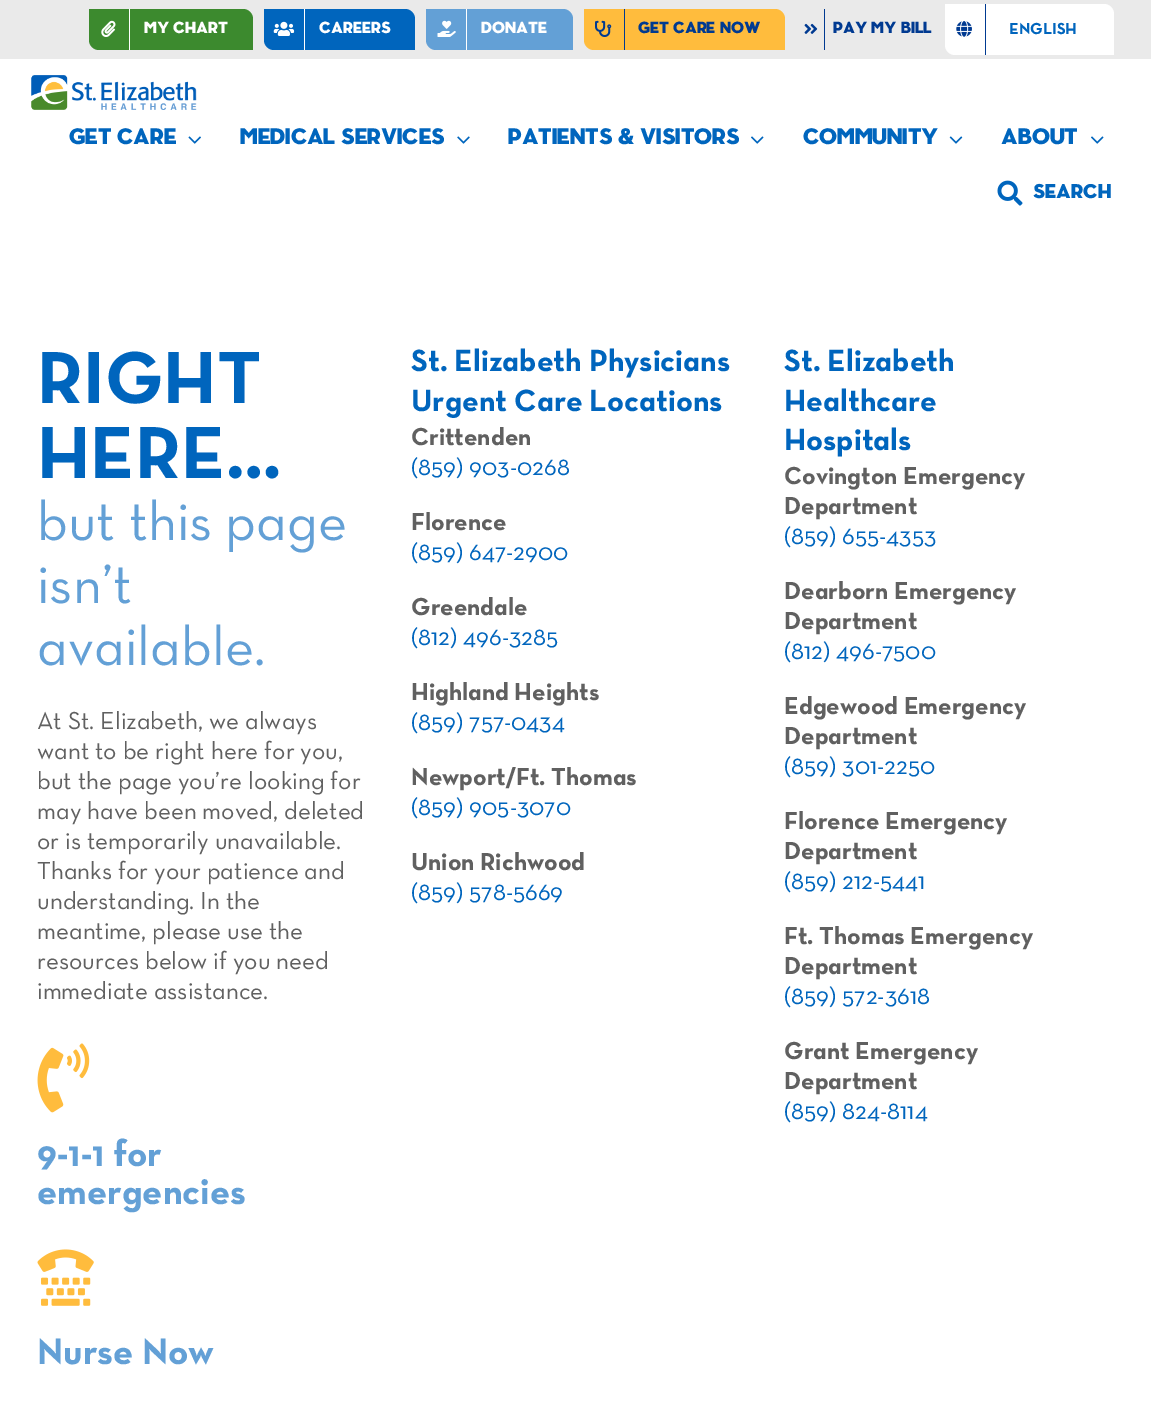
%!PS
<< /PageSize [1151 1404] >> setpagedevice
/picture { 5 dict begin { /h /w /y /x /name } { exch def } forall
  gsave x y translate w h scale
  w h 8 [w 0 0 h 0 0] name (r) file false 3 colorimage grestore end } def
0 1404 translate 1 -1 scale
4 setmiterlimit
1 setgray
0 0 1151 1404 rectfill
0.918 setgray
0 0 1151 59 rectfill
0.235 0.541 0.18 setrgbcolor
newpath 89 9 moveto 243 9 lineto 248.5 9 253 13.5 253 19 curveto 253 50 lineto 99 50 lineto 93.5 50 89 45.5 89 40 curveto closepath fill
1 setgray
129 9 1 41 rectfill
(img1.rgb) 101 20 15 17 picture
/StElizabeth-Regular [16.25 0 0 -16.25 0 0] selectfont
144 33 moveto (MY CHART) show
0 0.396 0.741 setrgbcolor
newpath 264 9 moveto 405 9 lineto 410.5 9 415 13.5 415 19 curveto 415 50 lineto 274 50 lineto 268.5 50 264 45.5 264 40 curveto closepath fill
1 setgray
304 9 1 41 rectfill
(img2.rgb) 273 21 22 15 picture
319 33 moveto (CAREERS) show
0.388 0.627 0.839 setrgbcolor
newpath 426 9 moveto 563 9 lineto 568.5 9 573 13.5 573 19 curveto 573 50 lineto 436 50 lineto 430.5 50 426 45.5 426 40 curveto closepath fill
1 setgray
466 9 1 41 rectfill
(img3.rgb) 437 20 19 17 picture
481 33 moveto (DONATE) show
1 0.737 0.239 setrgbcolor
newpath 584 9 moveto 775 9 lineto 780.5 9 785 13.5 785 19 curveto 785 50 lineto 594 50 lineto 588.5 50 584 45.5 584 40 curveto closepath fill
0 0.227 0.569 setrgbcolor
624 9 1 41 rectfill
(img4.rgb) 595 20 17 17 picture
638 33 moveto (GET CARE NOW) show
824 9 1 41 rectfill
(img5.rgb) 804 23 14 11 picture
833 33 moveto (PAY MY BILL) show
1 setgray
newpath 945 4 moveto 1104 4 lineto 1109.5 4 1114 8.5 1114 14 curveto 1114 55 lineto 955 55 lineto 949.5 55 945 50.5 945 45 curveto closepath fill
0 0.227 0.569 setrgbcolor
985 4 1 51 rectfill
(img6.rgb) 956 21 16 16 picture
/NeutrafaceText-Bold [16.25 0 0 -16.25 0 0] selectfont
0 0.396 0.741 setrgbcolor
1009 34 moveto (ENGLISH) show
(img7.rgb) 31 75 166 35 picture
/StElizabeth-Regular [22.5 0 0 -22.5 0 0] selectfont
69 144 moveto (Get Care) show
(img8.rgb) 188 136 13 8 picture
240 144 moveto (Medical Services) show
(img9.rgb) 457 136 13 8 picture
508 144 moveto (Patients & Visitors) show
(img10.rgb) 751 136 13 8 picture
803 144 moveto (Community) show
(img11.rgb) 949 136 14 8 picture
1001 144 moveto (About) show
(img10.rgb) 1091 136 13 8 picture
(img12.rgb) 997 180 26 26 picture
/StElizabeth-Regular [20 0 0 -20 0 0] selectfont
1033 198 moveto (SEARCH) show
/NeutrafaceText-Bold [75 0 0 -75 0 0] selectfont
37 403 moveto (RIGHT) show
37 478 moveto (HERE…) show
/NeutrafaceText-Regular [56.25 0 0 -56.25 0 0] selectfont
0.388 0.627 0.839 setrgbcolor
37 540 moveto (but this page) show
37 603 moveto (isn’t) show
37 665 moveto (available.) show
/NeutrafaceText-Regular [25 0 0 -25 0 0] selectfont
0.376 setgray
37 729 moveto (At St. Elizabeth, we always) show
37 759 moveto (want to be right here for you,) show
37 789 moveto (but the page you’re looking for) show
37 819 moveto (may have been moved, deleted) show
37 849 moveto (or is temporarily unavailable.) show
37 879 moveto (Thanks for your patience and) show
37 909 moveto (understanding. In the) show
37 939 moveto (meantime, please use the) show
37 969 moveto (resources below if you need) show
37 999 moveto (immediate assistance.) show
(img13.rgb) 37 1043 53 70 picture
/NeutrafaceText-Bold [37.5 0 0 -37.5 0 0] selectfont
0.388 0.627 0.839 setrgbcolor
37 1166 moveto (9-1-1 for) show
37 1204 moveto (emergencies) show
(img14.rgb) 37 1249 57 57 picture
37 1364 moveto (Nurse Now) show
/NeutrafaceText-Bold [31.25 0 0 -31.25 0 0] selectfont
0 0.396 0.741 setrgbcolor
411 371 moveto (St. Elizabeth Physicians) show
411 411 moveto (Urgent Care Locations) show
/NeutrafaceText-Bold [25 0 0 -25 0 0] selectfont
0.376 setgray
411 445 moveto (Crittenden) show
/NeutrafaceText-Regular [25 0 0 -25 0 0] selectfont
0 0.396 0.741 setrgbcolor
411 475 moveto (\(859\) 903-0268) show
/NeutrafaceText-Bold [25 0 0 -25 0 0] selectfont
0.376 setgray
411 530 moveto (Florence) show
/NeutrafaceText-Regular [25 0 0 -25 0 0] selectfont
0 0.396 0.741 setrgbcolor
411 560 moveto (\(859\) 647-2900) show
/NeutrafaceText-Bold [25 0 0 -25 0 0] selectfont
0.376 setgray
411 615 moveto (Greendale) show
/NeutrafaceText-Regular [25 0 0 -25 0 0] selectfont
0 0.396 0.741 setrgbcolor
411 645 moveto (\(812\) 496-3285) show
/NeutrafaceText-Bold [25 0 0 -25 0 0] selectfont
0.376 setgray
411 700 moveto (Highland Heights) show
/NeutrafaceText-Regular [25 0 0 -25 0 0] selectfont
0 0.396 0.741 setrgbcolor
411 730 moveto (\(859\) 757-0434) show
/NeutrafaceText-Bold [25 0 0 -25 0 0] selectfont
0.376 setgray
411 785 moveto (Newport/Ft. Thomas) show
/NeutrafaceText-Regular [25 0 0 -25 0 0] selectfont
0 0.396 0.741 setrgbcolor
411 815 moveto (\(859\) 905-3070) show
/NeutrafaceText-Bold [25 0 0 -25 0 0] selectfont
0.376 setgray
411 870 moveto (Union Richwood) show
/NeutrafaceText-Regular [25 0 0 -25 0 0] selectfont
0 0.396 0.741 setrgbcolor
411 900 moveto (\(859\) 578-5669) show
/NeutrafaceText-Bold [31.25 0 0 -31.25 0 0] selectfont
784 371 moveto (St. Elizabeth) show
784 411 moveto (Healthcare) show
784 450 moveto (Hospitals) show
/NeutrafaceText-Bold [25 0 0 -25 0 0] selectfont
0.376 setgray
784 484 moveto (Covington Emergency) show
784 514 moveto (Department) show
/NeutrafaceText-Regular [25 0 0 -25 0 0] selectfont
0 0.396 0.741 setrgbcolor
784 544 moveto (\(859\) 655-4353) show
/NeutrafaceText-Bold [25 0 0 -25 0 0] selectfont
0.376 setgray
784 599 moveto (Dearborn Emergency) show
784 629 moveto (Department) show
/NeutrafaceText-Regular [25 0 0 -25 0 0] selectfont
0 0.396 0.741 setrgbcolor
784 659 moveto (\(812\) 496-7500) show
/NeutrafaceText-Bold [25 0 0 -25 0 0] selectfont
0.376 setgray
784 714 moveto (Edgewood Emergency) show
784 744 moveto (Department) show
/NeutrafaceText-Regular [25 0 0 -25 0 0] selectfont
0 0.396 0.741 setrgbcolor
784 774 moveto (\(859\) 301-2250) show
/NeutrafaceText-Bold [25 0 0 -25 0 0] selectfont
0.376 setgray
784 829 moveto (Florence Emergency) show
784 859 moveto (Department) show
/NeutrafaceText-Regular [25 0 0 -25 0 0] selectfont
0 0.396 0.741 setrgbcolor
784 889 moveto (\(859\) 212-5441) show
/NeutrafaceText-Bold [25 0 0 -25 0 0] selectfont
0.376 setgray
784 944 moveto (Ft. Thomas Emergency) show
784 974 moveto (Department) show
/NeutrafaceText-Regular [25 0 0 -25 0 0] selectfont
0 0.396 0.741 setrgbcolor
784 1004 moveto (\(859\) 572-3618) show
/NeutrafaceText-Bold [25 0 0 -25 0 0] selectfont
0.376 setgray
784 1059 moveto (Grant Emergency) show
784 1089 moveto (Department) show
/NeutrafaceText-Regular [25 0 0 -25 0 0] selectfont
0 0.396 0.741 setrgbcolor
784 1119 moveto (\(859\) 824-8114) show
showpage
